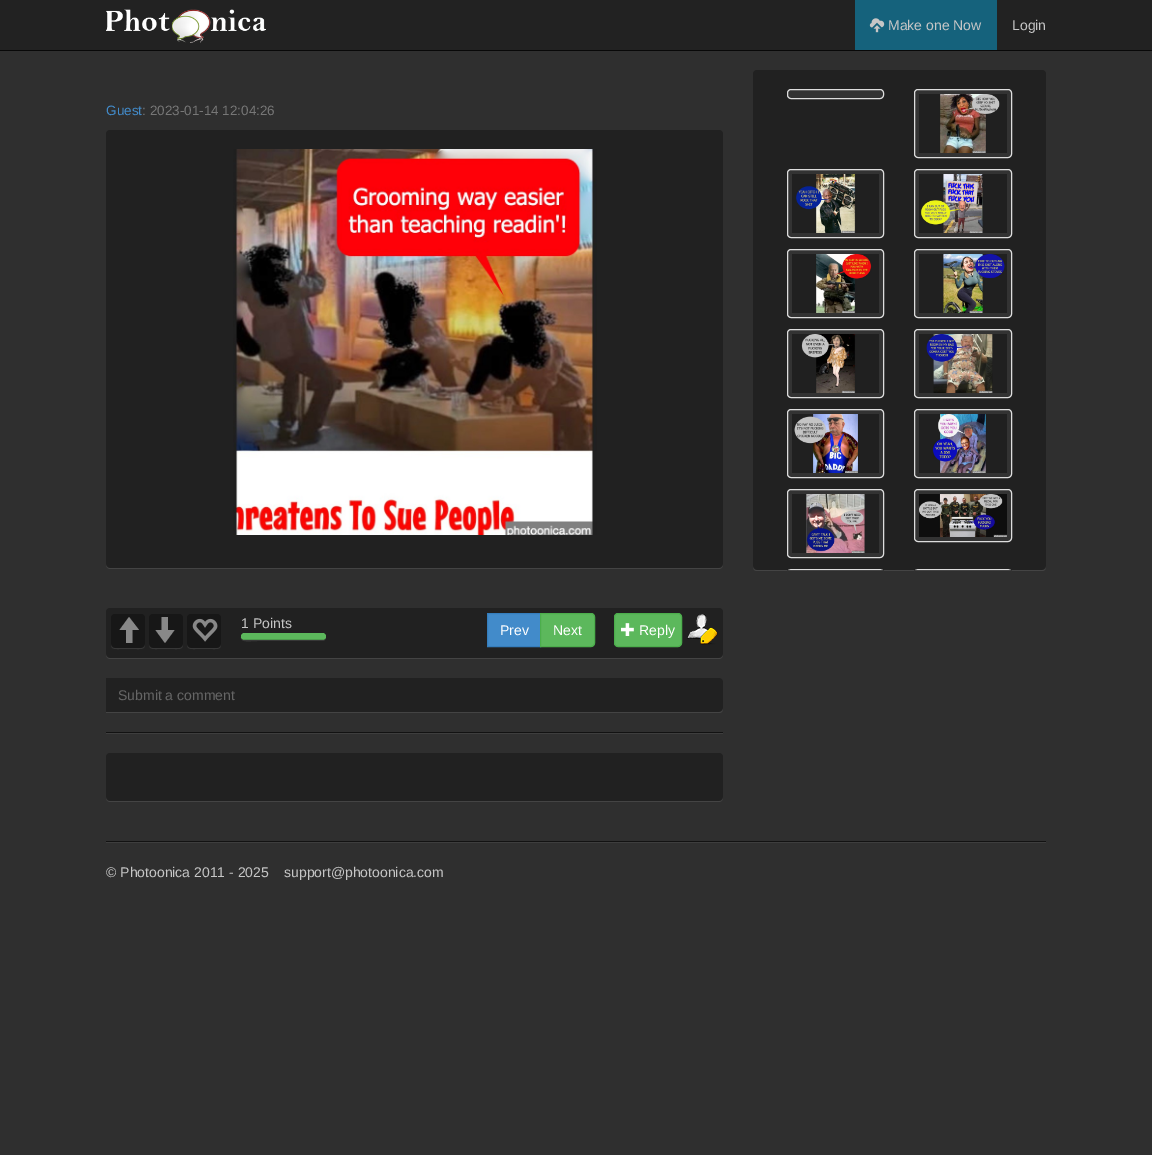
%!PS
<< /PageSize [1152 1155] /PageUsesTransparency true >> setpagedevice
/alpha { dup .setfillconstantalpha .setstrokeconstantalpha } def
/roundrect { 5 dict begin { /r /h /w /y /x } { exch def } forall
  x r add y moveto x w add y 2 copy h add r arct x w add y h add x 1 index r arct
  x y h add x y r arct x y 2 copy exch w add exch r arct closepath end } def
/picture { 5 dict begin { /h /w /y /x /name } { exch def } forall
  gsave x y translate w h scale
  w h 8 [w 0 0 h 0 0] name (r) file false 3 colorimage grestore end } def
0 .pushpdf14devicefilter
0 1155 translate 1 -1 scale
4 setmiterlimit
0.184 setgray
0 0 1152 1155 rectfill
0.133 setgray
0 0 1152 50 rectfill
0.031 setgray
0 50 1152 1 rectfill
(img1.rgb) 106 9 160 34 picture
0.082 0.384 0.486 setrgbcolor
855 0 142 50 rectfill
(img2.rgb) 869 18 16 15 picture
/LiberationSans-Regular [14 0 0 -14 0 0] selectfont
0.776 setgray
888 30 moveto (Make one Now) show
1012 30 moveto (Login) show
/LiberationSans-Regular [13.5 0 0 -13.5 0 0] selectfont
0.259 0.545 0.792 setrgbcolor
106 115 moveto (Guest) show
0.467 setgray
142 115 moveto (: 2023-01-14 12:04:26) show
0.267 setgray
newpath 106 564 moveto 106 565 lineto 106 567 108 569 110 569 curveto 719 569 lineto 721 569 723 567 723 565 curveto 723 564 lineto 723 566 721 568 719 568 curveto 110 568 lineto 108 568 106 566 106 564 curveto closepath fill
0.3 alpha
0 setgray
106 130 617 438 4 roundrect fill
1 alpha
(img3.rgb) 233 149 364 386 picture
0.267 setgray
newpath 106 654 moveto 106 655 lineto 106 657 108 659 110 659 curveto 719 659 lineto 721 659 723 657 723 655 curveto 723 654 lineto 723 656 721 658 719 658 curveto 110 658 lineto 108 658 106 656 106 654 curveto closepath fill
0.3 alpha
0 setgray
106 608 617 50 4 roundrect fill
1 alpha
0.216 setgray
newpath 111 644 moveto 111 649.5 114.5 649 119.5 649 curveto 136.5 649 lineto 141.5 649 145 649.5 145 644 curveto 145 646 143 648 141 648 curveto 115 648 lineto 113 648 111 646 111 644 curveto closepath fill
0.3 alpha
0 setgray
111 614 34 34 4 roundrect fill
1 alpha
0.533 setgray
newpath 119.5 630 moveto 129 617 lineto 139 630 lineto 132.5 630 lineto 132.5 643 lineto 126 643 lineto 126 630 lineto closepath fill
0.216 setgray
newpath 149 644 moveto 149 649.5 152.5 649 157.5 649 curveto 174.5 649 lineto 179.5 649 183 649.5 183 644 curveto 183 646 181 648 179 648 curveto 153 648 lineto 151 648 149 646 149 644 curveto closepath fill
0.3 alpha
0 setgray
149 614 34 34 4 roundrect fill
1 alpha
0.533 setgray
newpath 155.5 630 moveto 161.5 630 lineto 161.5 617 lineto 168 617 lineto 168 630 lineto 174.5 630 lineto 165 643 lineto closepath fill
0.216 setgray
newpath 187 644 moveto 187 649.5 190.5 649 195.5 649 curveto 212.5 649 lineto 217.5 649 221 649.5 221 644 curveto 221 646 219 648 217 648 curveto 191 648 lineto 189 648 187 646 187 644 curveto closepath fill
0.3 alpha
0 setgray
187 614 34 34 4 roundrect fill
1 alpha
(img4.rgb) 192 618 26 24 picture
/LiberationSans-Regular [14 0 0 -14 0 0] selectfont
0.776 setgray
241 628 moveto (1 Points) show
0.259 0.545 0.792 setrgbcolor
newpath 487.5 613.5 moveto 540.5 613.5 lineto 540.5 646.5 lineto 487.5 646.5 lineto closepath gsave fill grestore
0.208 0.494 0.741 setrgbcolor
stroke
1 setgray
500 635 moveto (Prev) show
0.361 0.722 0.361 setrgbcolor
newpath 540.5 613.5 moveto 591 613.5 lineto 593 613.5 594.5 615 594.5 617 curveto 594.5 643 lineto 594.5 645 593 646.5 591 646.5 curveto 540.5 646.5 lineto closepath gsave fill grestore
0.298 0.682 0.298 setrgbcolor
stroke
1 setgray
553 635 moveto (Next) show
0.361 0.722 0.361 setrgbcolor
614.5 613.5 67 33 3.5 roundrect gsave fill grestore
0.298 0.682 0.298 setrgbcolor
stroke
(img5.rgb) 621 623 13 13 picture
1 setgray
639 635 moveto (Reply) show
(img6.rgb) 687 614 31 31 picture
0.216 setgray
newpath 241 637 moveto 240 643 250 641 258 641 curveto 322 641 lineto 325 641 326 639 326 637 curveto 326 639 324 640 322 640 curveto 244 640 lineto 243 640 241 639 241 637 curveto closepath fill
0.361 0.722 0.361 setrgbcolor
241 633 85 7 3.5 roundrect fill
gsave
241 633 85 7 3.5 roundrect clip newpath
0.15 alpha
0 setgray
241 639 85 1 rectfill
grestore
0.267 setgray
newpath 106 712 moveto 106 713 lineto 719 713 lineto 722 713 723 711 723 708 curveto 723 710 721 712 719 712 curveto closepath fill
0.3 alpha
0 setgray
newpath 106 678 moveto 719 678 lineto 721 678 723 680 723 682 curveto 723 708 lineto 723 710 721 712 719 712 curveto 106 712 lineto closepath fill
1 alpha
0.4 setgray
118 700 moveto (Submit a comment) show
0.243 setgray
106 733 617 1 rectfill
0.071 setgray
106 732 617 1 rectfill
0.267 setgray
newpath 106 797 moveto 106 798 lineto 106 800 108 802 110 802 curveto 719 802 lineto 721 802 723 800 723 798 curveto 723 797 lineto 723 799 721 801 719 801 curveto 110 801 lineto 108 801 106 799 106 797 curveto closepath fill
0.3 alpha
0 setgray
106 753 617 48 4 roundrect fill
1 alpha
0.267 setgray
newpath 753 566 moveto 753 569 754 571 757 571 curveto 1042 571 lineto 1045 571 1046 569 1046 566 curveto 1046 568 1044 570 1042 570 curveto 757 570 lineto 755 570 753 568 753 566 curveto closepath fill
0.3 alpha
0 setgray
753 70 293 500 4 roundrect fill
1 alpha
0.2 setgray
787.5 89.5 96 9 3.5 roundrect gsave fill grestore
0.867 setgray
stroke
0.2 setgray
914.5 89.5 97 68 3.5 roundrect gsave fill grestore
0.867 setgray
stroke
(img7.rgb) 919 94 88 59 picture
0.2 setgray
787.5 169.5 96 68 3.5 roundrect gsave fill grestore
0.867 setgray
stroke
(img8.rgb) 792 174 87 59 picture
0.2 setgray
914.5 169.5 97 68 3.5 roundrect gsave fill grestore
0.867 setgray
stroke
(img9.rgb) 919 174 88 59 picture
0.2 setgray
787.5 249.5 96 68 3.5 roundrect gsave fill grestore
0.867 setgray
stroke
(img10.rgb) 792 254 87 59 picture
0.2 setgray
914.5 249.5 97 68 3.5 roundrect gsave fill grestore
0.867 setgray
stroke
(img11.rgb) 919 254 88 59 picture
0.2 setgray
787.5 329.5 96 68 3.5 roundrect gsave fill grestore
0.867 setgray
stroke
(img12.rgb) 792 334 87 59 picture
0.2 setgray
914.5 329.5 97 68 3.5 roundrect gsave fill grestore
0.867 setgray
stroke
(img13.rgb) 919 334 88 59 picture
0.2 setgray
787.5 409.5 96 68 3.5 roundrect gsave fill grestore
0.867 setgray
stroke
(img14.rgb) 792 414 87 59 picture
0.2 setgray
914.5 409.5 97 68 3.5 roundrect gsave fill grestore
0.867 setgray
stroke
(img15.rgb) 919 414 88 59 picture
0.2 setgray
787.5 489.5 96 68 3.5 roundrect gsave fill grestore
0.867 setgray
stroke
(img16.rgb) 792 494 87 59 picture
0.2 setgray
914.5 489.5 97 52 3.5 roundrect gsave fill grestore
0.867 setgray
stroke
(img17.rgb) 919 494 88 43 picture
0.2 setgray
newpath 791 569 moveto 880 569 lineto 882 569 884 571 884 573 curveto 884 570 lineto 787 570 lineto 787 573 lineto 787 571 789 569 791 569 curveto closepath fill
0.867 setgray
newpath 791 569 moveto 788 570 lineto 883 570 lineto 880 569 lineto closepath fill
0.2 setgray
newpath 918 569 moveto 1008 569 lineto 1010 569 1012 571 1012 573 curveto 1012 570 lineto 914 570 lineto 914 573 lineto 914 571 916 569 918 569 curveto closepath fill
0.867 setgray
newpath 918 569 moveto 915 570 lineto 1011 570 lineto 1008 569 lineto closepath fill
0.243 setgray
106 842 940 1 rectfill
0.071 setgray
106 841 940 1 rectfill
0.776 setgray
106 877 moveto (© Photoonica 2011 - 2025) show
284 877 moveto (support@photoonica.com) show
.poppdf14devicefilter showpage
